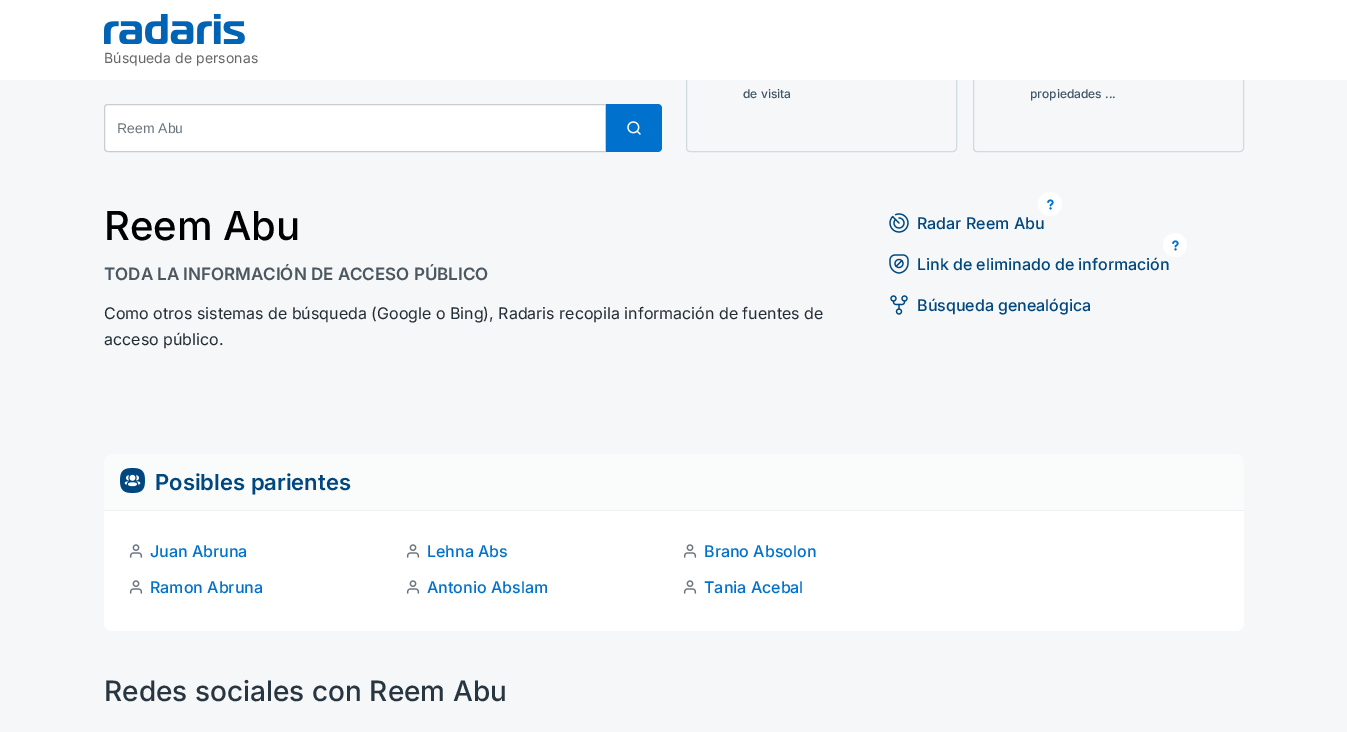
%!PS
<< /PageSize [1347 732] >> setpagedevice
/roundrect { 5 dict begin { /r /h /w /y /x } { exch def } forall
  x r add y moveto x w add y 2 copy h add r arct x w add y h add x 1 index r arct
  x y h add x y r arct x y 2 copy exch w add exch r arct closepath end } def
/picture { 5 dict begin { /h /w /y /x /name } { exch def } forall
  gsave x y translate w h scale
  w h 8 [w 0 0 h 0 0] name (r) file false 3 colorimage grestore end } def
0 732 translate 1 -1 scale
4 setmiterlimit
0.961 0.969 0.973 setrgbcolor
0 0 1347 732 rectfill
0.816 0.855 0.882 setrgbcolor
686.5 -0.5 270 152 3.5 roundrect stroke
973.5 -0.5 270 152 3.5 roundrect stroke
1 setgray
0 0 1347 80 rectfill
(img1.rgb) 104 14 141 30 picture
/Inter-Regular [14 0 0 -14 0 0] selectfont
0.4 setgray
104 63 moveto 0.1 0 (Búsqueda de personas) ashow
/Inter-Medium [12 0 0 -12 0 0] selectfont
0.247 0.329 0.392 setrgbcolor
743 98 moveto (de visita) show
1030 98 moveto (propiedades ...) show
1 setgray
newpath 108 104.5 moveto 605.5 104.5 lineto 605.5 151.5 lineto 108 151.5 lineto 106 151.5 104.5 150 104.5 148 curveto 104.5 108 lineto 104.5 106 106 104.5 108 104.5 curveto closepath gsave fill grestore
0.792 0.804 0.816 setrgbcolor
stroke
/LiberationSans-Regular [14 0 0 -14 0 0] selectfont
0.42 0.459 0.49 setrgbcolor
117 133 moveto (Reem Abu) show
0 0.443 0.8 setrgbcolor
newpath 606 104 moveto 658 104 lineto 660 104 662 106 662 108 curveto 662 148 lineto 662 150 660 152 658 152 curveto 606 152 lineto closepath fill
(img2.rgb) 627 121 14 14 picture
/Inter-Medium [40 0 0 -40 0 0] selectfont
0 setgray
104 240 moveto (Reem Abu) show
/Inter-SemiBold [17 0 0 -17 0 0] selectfont
0.298 0.345 0.38 setrgbcolor
104 280 moveto (TODA LA INFORMACIÓN DE ACCESO PÚBLICO) show
/Inter-Regular [16 0 0 -16 0 0] selectfont
0.133 0.176 0.208 setrgbcolor
104 319 moveto (Como otros sistemas de búsqueda \(Google o Bing\), Radaris recopila información de fuentes de) show
104 345 moveto (acceso público.) show
1 setgray
newpath 1050 204 12 0 360 arc closepath fill
(img3.rgb) 1047 199 7 11 picture
(img4.rgb) 889 213 20 20 picture
/Inter-Medium [16 0 0 -16 0 0] selectfont
0 0.278 0.498 setrgbcolor
917 229 moveto (Radar Reem Abu) show
1 setgray
newpath 1175 245 12 0 360 arc closepath fill
(img3.rgb) 1172 240 7 11 picture
(img5.rgb) 889 254 20 20 picture
0 0.278 0.498 setrgbcolor
917 270 moveto (Link de eliminado de información) show
(img6.rgb) 890 295 18 20 picture
917 311 moveto (Búsqueda genealógica) show
0.98 0.984 0.984 setrgbcolor
newpath 112 454 moveto 1236 454 lineto 1240.5 454 1244 457.5 1244 462 curveto 1244 511 lineto 104 511 lineto 104 462 lineto 104 457.5 107.5 454 112 454 curveto closepath fill
(img7.rgb) 120 468 25 25 picture
0.937 0.949 0.961 setrgbcolor
104 510 1140 1 rectfill
/Inter-SemiBold [22 0 0 -22 0 0] selectfont
0 0.278 0.498 setrgbcolor
155 490 moveto (Posibles parientes) show
1 setgray
newpath 104 511 moveto 1244 511 lineto 1244 623 lineto 1244 627.5 1240.5 631 1236 631 curveto 112 631 lineto 107.5 631 104 627.5 104 623 curveto closepath fill
(img8.rgb) 129 544 14 14 picture
/Inter-Medium [16 0 0 -16 0 0] selectfont
0 0.443 0.8 setrgbcolor
150 557 moveto (Juan Abruna) show
(img8.rgb) 406 544 14 14 picture
427 557 moveto (Lehna Abs) show
(img8.rgb) 683 544 14 14 picture
704 557 moveto (Brano Absolon) show
(img8.rgb) 129 580 14 14 picture
150 593 moveto (Ramon Abruna) show
(img8.rgb) 406 580 14 14 picture
427 593 moveto (Antonio Abslam) show
(img8.rgb) 683 580 14 14 picture
704 593 moveto (Tania Acebal) show
/Inter-Medium [28 0 0 -28 0 0] selectfont
0.157 0.212 0.255 setrgbcolor
104 701 moveto (Redes sociales con Reem Abu) show
showpage
